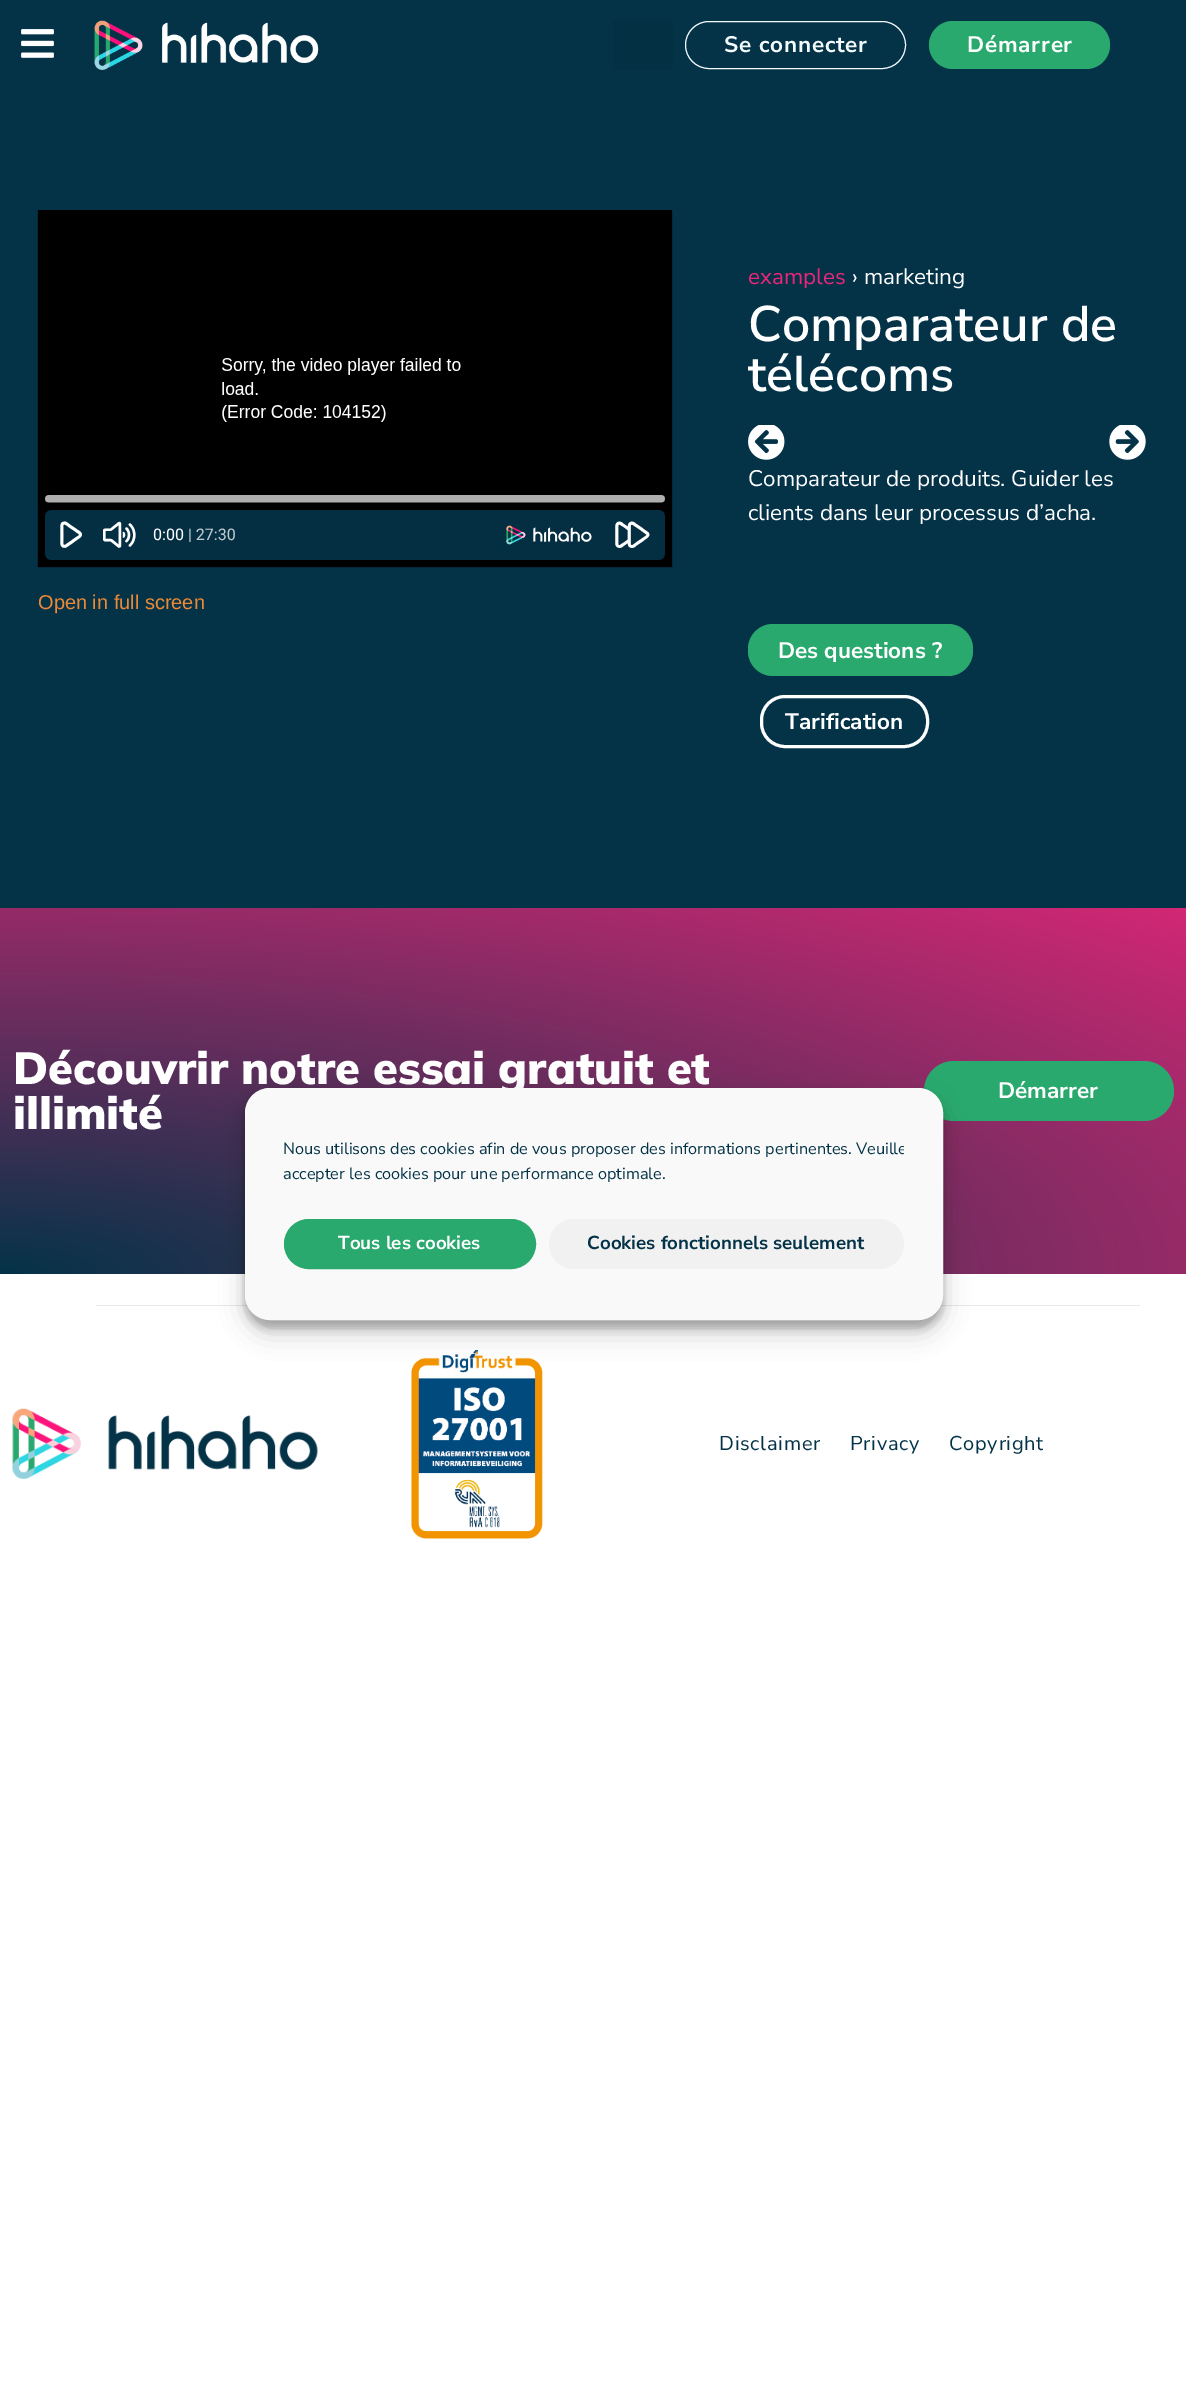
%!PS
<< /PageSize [1186 2406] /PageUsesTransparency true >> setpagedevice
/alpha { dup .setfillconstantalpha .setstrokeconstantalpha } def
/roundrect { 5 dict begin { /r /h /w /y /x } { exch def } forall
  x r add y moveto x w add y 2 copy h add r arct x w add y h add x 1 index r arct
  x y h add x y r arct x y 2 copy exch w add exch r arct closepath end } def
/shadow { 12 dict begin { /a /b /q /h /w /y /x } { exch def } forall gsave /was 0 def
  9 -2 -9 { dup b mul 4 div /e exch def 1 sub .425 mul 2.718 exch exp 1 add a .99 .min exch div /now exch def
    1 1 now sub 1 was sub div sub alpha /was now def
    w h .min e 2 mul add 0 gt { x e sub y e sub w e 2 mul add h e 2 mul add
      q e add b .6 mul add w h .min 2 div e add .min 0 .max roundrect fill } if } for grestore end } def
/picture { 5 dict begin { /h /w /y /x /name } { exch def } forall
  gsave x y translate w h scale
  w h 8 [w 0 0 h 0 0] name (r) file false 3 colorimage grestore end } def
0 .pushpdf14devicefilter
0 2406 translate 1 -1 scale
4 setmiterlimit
1 setgray
0 0 1186 2406 rectfill
0.016 0.2 0.282 setrgbcolor
0 0 1186 908 rectfill
(img1.rgb) 21 29 33 29 picture
(img2.rgb) 94 20 225 50 picture
0.016 0.188 0.267 setrgbcolor
613 20 60 50 rectfill
0.957 0.984 0.988 setrgbcolor
685.5 21.5 220 47 23.5 roundrect stroke
/NunitoSans-Bold [22.5 0 0 -22.5 0 0] selectfont
724 52 moveto 0.75 0 (Se connecter) ashow
0.161 0.663 0.431 setrgbcolor
929 21 181 48 24 roundrect fill
1 setgray
967 52 moveto 0.75 0 (Démarrer) ashow
(img3.rgb) 37 210 636 358 picture
/LiberationSans-Regular [20 0 0 -20 0 0] selectfont
0.929 0.537 0.212 setrgbcolor
38 609 moveto (Open in full screen) show
/NunitoSans-Regular [22.5 0 0 -22.5 0 0] selectfont
0.929 0.145 0.478 setrgbcolor
748 284 moveto (examples) show
1 setgray
852 284 moveto (› marketing) show
/NunitoSans-SemiBold [50 0 0 -50 0 0] selectfont
748 341 moveto (Comparateur de) show
748 391 moveto (télécoms) show
(img4.rgb) 748 425 37 35 picture
(img5.rgb) 1109 425 37 35 picture
/NunitoSans-Regular [22.5 0 0 -22.5 0 0] selectfont
748 486 moveto (Comparateur de produits. Guider les) show
748 520 moveto (clients dans leur processus d’acha.) show
0.161 0.663 0.431 setrgbcolor
748 624 225 52 25 roundrect fill
/NunitoSans-Bold [22.5 0 0 -22.5 0 0] selectfont
1 setgray
778 658 moveto (Des questions ?) show
3 setlinewidth
761.5 696.5 166 50 23.5 roundrect stroke
785 729 moveto (Tarification) show
gsave newpath 0 908 moveto 1186 908 lineto 1186 1274 lineto 0 1274 lineto closepath clip newpath 0 1274 translate 1678 518 scale
<< /ShadingType 3 /ColorSpace /DeviceRGB /Coords [0 0 0 0 0 1] /Extend [true true] /Function << /FunctionType 2 /Domain [0 1] /C0 [0.016 0.2 0.282] /C1 [0.827 0.153 0.459] /N 1 >> >> shfill grestore
/Mulish-Black [45 0 0 -45 0 0] selectfont
13 1084 moveto (Découvrir notre essai gratuit et) show
13 1129 moveto (illimité) show
0.161 0.663 0.431 setrgbcolor
924 1061 250 60 30 roundrect fill
/NunitoSans-Bold [22.5 0 0 -22.5 0 0] selectfont
1 setgray
998 1098 moveto (Démarrer) show
0.898 0.918 0.925 setrgbcolor
96 1305 1044 1 rectfill
(img6.rgb) 12 1408 306 71 picture
(img7.rgb) 411 1350 132 189 picture
/NunitoSans-Regular [20 0 0 -20 0 0] selectfont
0.016 0.2 0.282 setrgbcolor
719 1450 moveto 0.75 0 (Disclaimer) ashow
850 1450 moveto 0.75 0 (Privacy) ashow
949 1450 moveto 0.75 0 (Copyright) ashow
0 setgray
245 1095 698 233 25 4 0.23 shadow
245 1100 698 233 25 12.5 0.19 shadow
0.976 setgray
245.5 1088.5 697 231 24.5 roundrect gsave fill grestore
1 setlinewidth
stroke
gsave
284 1139 620 55 rectclip
/NunitoSans-Regular [16.25 0 0 -16.25 0 0] selectfont
0.016 0.2 0.282 setrgbcolor
283 1154 moveto (Nous utilisons des cookies afin de vous proposer des informations pertinentes. Veuille) show
grestore
/NunitoSans-Regular [16.25 0 0 -16.25 0 0] selectfont
0.016 0.2 0.282 setrgbcolor
283 1179 moveto (accepter les cookies pour une performance optimale.) show
0.161 0.663 0.431 setrgbcolor
284.5 1219.5 251 49 24.5 roundrect gsave fill grestore
stroke
/NunitoSans-Bold [18.75 0 0 -18.75 0 0] selectfont
1 setgray
338 1249 moveto (Tous les cookies) show
0.945 setgray
549 1219 355 50 25 roundrect fill
0.016 0.2 0.282 setrgbcolor
587 1249 moveto (Cookies fonctionnels seulement) show
.poppdf14devicefilter showpage
